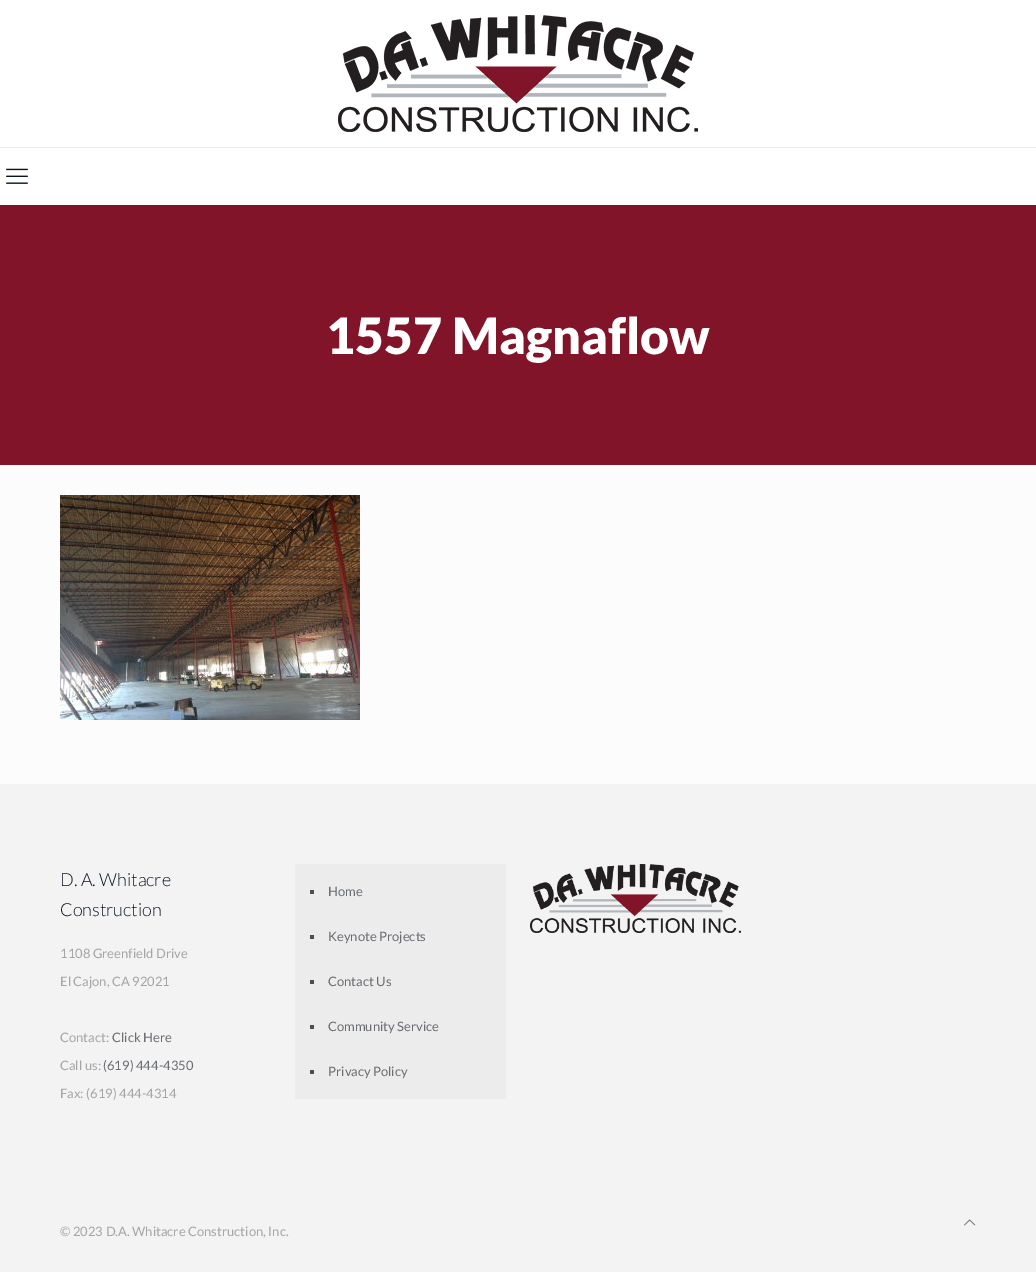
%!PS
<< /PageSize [1036 1272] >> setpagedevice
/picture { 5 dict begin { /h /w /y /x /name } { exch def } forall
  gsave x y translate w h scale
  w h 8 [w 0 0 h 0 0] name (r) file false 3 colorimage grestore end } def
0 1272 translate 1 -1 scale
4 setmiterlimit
0.988 setgray
0 0 1036 1272 rectfill
1 setgray
0 0 1036 205 rectfill
0.922 setgray
0 147 1036 1 rectfill
(img1.rgb) 338 15 360 117 picture
(img2.rgb) 6 168 22 16 picture
0.506 0.078 0.157 setrgbcolor
0 205 1036 260 rectfill
/Lato-Black [50 0 0 -50 0 0] selectfont
1 setgray
326 354 moveto (1557 Magnaflow) show
(img3.rgb) 60 495 300 225 picture
0.953 setgray
0 784 1036 488 rectfill
/Lato-Light [18 0 0 -18 0 0] selectfont
0.027 0.075 0.137 setrgbcolor
60 886 moveto (D. A. Whitacre) show
60 916 moveto (Construction) show
/Lato-Regular [13 0 0 -13 0 0] selectfont
0.639 0.647 0.659 setrgbcolor
60 958 moveto (1108 Greenfield Drive) show
60 986 moveto (El Cajon, CA 92021) show
60 1042 moveto (Contact:) show
0.412 0.424 0.447 setrgbcolor
112 1042 moveto (Click Here) show
0.639 0.647 0.659 setrgbcolor
60 1070 moveto (Call us:) show
0.412 0.424 0.447 setrgbcolor
103 1070 moveto (\(619\) 444-4350) show
0.639 0.647 0.659 setrgbcolor
60 1098 moveto (Fax: \(619\) 444-4314) show
0.925 setgray
295 864 211 235 rectfill
0.286 0.306 0.341 setrgbcolor
310 890 4 4 rectfill
0.412 0.424 0.447 setrgbcolor
328 896 moveto (Home) show
0.286 0.306 0.341 setrgbcolor
310 935 4 4 rectfill
0.412 0.424 0.447 setrgbcolor
328 941 moveto (Keynote Projects) show
0.286 0.306 0.341 setrgbcolor
310 980 4 4 rectfill
0.412 0.424 0.447 setrgbcolor
328 986 moveto (Contact Us) show
0.286 0.306 0.341 setrgbcolor
310 1025 4 4 rectfill
0.412 0.424 0.447 setrgbcolor
328 1031 moveto (Community Service) show
0.286 0.306 0.341 setrgbcolor
310 1070 4 4 rectfill
0.412 0.424 0.447 setrgbcolor
328 1076 moveto (Privacy Policy) show
(img4.rgb) 530 864 211 69 picture
(img5.rgb) 964 1219 12 7 picture
0.639 0.647 0.659 setrgbcolor
60 1236 moveto (© 2023 D.A. Whitacre Construction, Inc.) show
showpage
